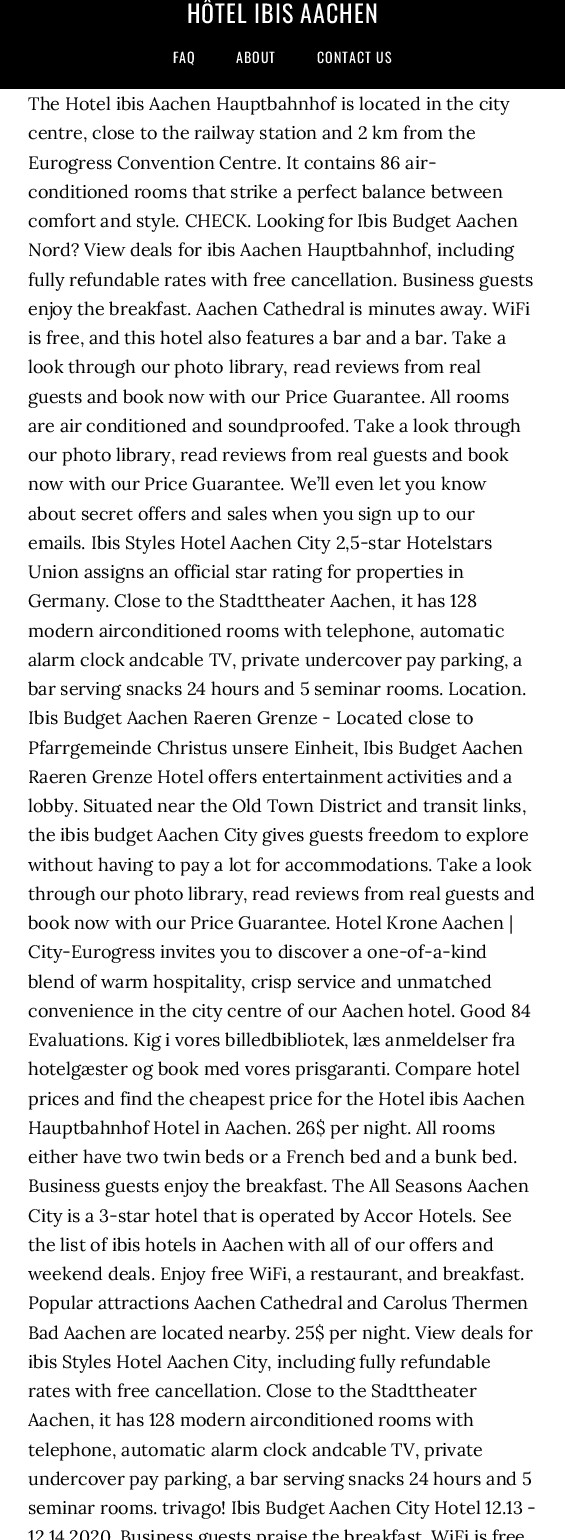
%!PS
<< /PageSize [565 1540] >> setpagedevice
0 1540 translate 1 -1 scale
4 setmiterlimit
1 setgray
0 0 565 1540 rectfill
0 setgray
0 0 565 89 rectfill
/Oswald-Regular [24 0 0 -24 0 0] selectfont
1 setgray
187 23 moveto 1 0 (HÔTEL IBIS AACHEN) ashow
/Oswald-Regular [14 0 0 -14 0 0] selectfont
173 63 moveto 1 0 (FAQ) ashow
236 63 moveto 1 0 (ABOUT) ashow
317 63 moveto 1 0 (CONTACT US) ashow
/Lora-Regular [18 0 0 -18 0 0] selectfont
0 setgray
28 110 moveto (The Hotel ibis Aachen Hauptbahnhof is located in the city) show
28 139 moveto (centre, close to the railway station and 2 km from the) show
28 169 moveto (Eurogress Convention Centre. It contains 86 air-) show
28 198 moveto (conditioned rooms that strike a perfect balance between) show
28 227 moveto (comfort and style. CHECK. Looking for Ibis Budget Aachen) show
28 256 moveto (Nord? View deals for ibis Aachen Hauptbahnhof, including) show
28 286 moveto (fully refundable rates with free cancellation. Business guests) show
28 315 moveto (enjoy the breakfast. Aachen Cathedral is minutes away. WiFi) show
28 344 moveto (is free, and this hotel also features a bar and a bar. Take a) show
28 373 moveto (look through our photo library, read reviews from real) show
28 403 moveto (guests and book now with our Price Guarantee. All rooms) show
28 432 moveto (are air conditioned and soundproofed. Take a look through) show
28 461 moveto (our photo library, read reviews from real guests and book) show
28 490 moveto (now with our Price Guarantee. We’ll even let you know) show
28 520 moveto (about secret offers and sales when you sign up to our) show
28 549 moveto (emails. Ibis Styles Hotel Aachen City 2,5-star Hotelstars) show
28 578 moveto (Union assigns an official star rating for properties in) show
28 607 moveto (Germany. Close to the Stadttheater Aachen, it has 128) show
28 637 moveto (modern airconditioned rooms with telephone, automatic) show
28 666 moveto (alarm clock andcable TV, private undercover pay parking, a) show
28 695 moveto (bar serving snacks 24 hours and 5 seminar rooms. Location.) show
28 724 moveto (Ibis Budget Aachen Raeren Grenze - Located close to) show
28 754 moveto (Pfarrgemeinde Christus unsere Einheit, Ibis Budget Aachen) show
28 783 moveto (Raeren Grenze Hotel offers entertainment activities and a) show
28 812 moveto (lobby. Situated near the Old Town District and transit links,) show
28 841 moveto (the ibis budget Aachen City gives guests freedom to explore) show
28 871 moveto (without having to pay a lot for accommodations. Take a look) show
28 900 moveto (through our photo library, read reviews from real guests and) show
28 929 moveto (book now with our Price Guarantee. Hotel Krone Aachen |) show
28 958 moveto (City-Eurogress invites you to discover a one-of-a-kind) show
28 988 moveto (blend of warm hospitality, crisp service and unmatched) show
28 1017 moveto (convenience in the city centre of our Aachen hotel. Good 84) show
28 1046 moveto (Evaluations. Kig i vores billedbibliotek, læs anmeldelser fra) show
28 1075 moveto (hotelgæster og book med vores prisgaranti. Compare hotel) show
28 1105 moveto (prices and find the cheapest price for the Hotel ibis Aachen) show
28 1134 moveto (Hauptbahnhof Hotel in Aachen. 26$ per night. All rooms) show
28 1163 moveto (either have two twin beds or a French bed and a bunk bed.) show
28 1192 moveto (Business guests enjoy the breakfast. The All Seasons Aachen) show
28 1222 moveto (City is a 3-star hotel that is operated by Accor Hotels. See) show
28 1251 moveto (the list of ibis hotels in Aachen with all of our offers and) show
28 1280 moveto (weekend deals. Enjoy free WiFi, a restaurant, and breakfast.) show
28 1309 moveto (Popular attractions Aachen Cathedral and Carolus Thermen) show
28 1339 moveto (Bad Aachen are located nearby. 25$ per night. View deals for) show
28 1368 moveto (ibis Styles Hotel Aachen City, including fully refundable) show
28 1397 moveto (rates with free cancellation. Close to the Stadttheater) show
28 1426 moveto (Aachen, it has 128 modern airconditioned rooms with) show
28 1456 moveto (telephone, automatic alarm clock andcable TV, private) show
28 1485 moveto (undercover pay parking, a bar serving snacks 24 hours and 5) show
28 1514 moveto (seminar rooms. trivago! Ibis Budget Aachen City Hotel 12.13 -) show
28 1543 moveto (12.14.2020. Business guests praise the breakfast. WiFi is free) show
showpage
